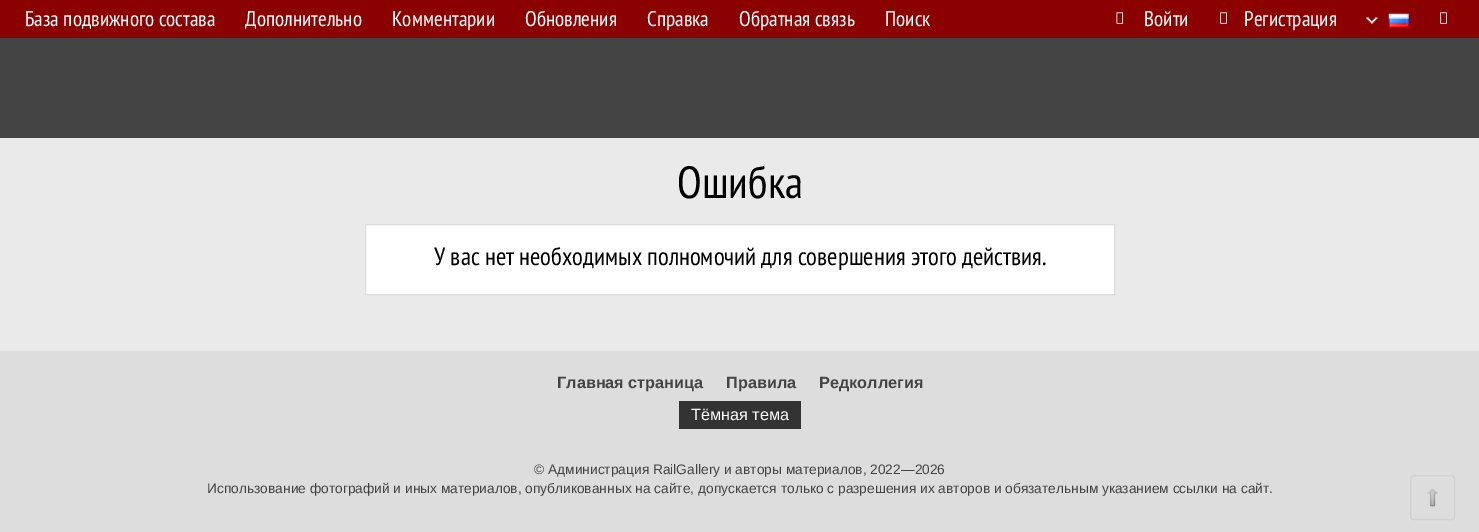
%!PS
<< /PageSize [1479 532] >> setpagedevice
/roundrect { 5 dict begin { /r /h /w /y /x } { exch def } forall
  x r add y moveto x w add y 2 copy h add r arct x w add y h add x 1 index r arct
  x y h add x y r arct x y 2 copy exch w add exch r arct closepath end } def
/picture { 5 dict begin { /h /w /y /x /name } { exch def } forall
  gsave x y translate w h scale
  w h 8 [w 0 0 h 0 0] name (r) file false 3 colorimage grestore end } def
0 532 translate 1 -1 scale
4 setmiterlimit
0.867 setgray
0 0 1479 532 rectfill
0.545 0 0 setrgbcolor
0 0 1479 38 rectfill
/PTSansNarrow-Regular [21.25 0 0 -21.25 0 0] selectfont
1 setgray
25 26 moveto (База подвижного состава) show
245 26 moveto (Дополнительно) show
392 26 moveto (Комментарии) show
525 26 moveto (Обновления) show
647 26 moveto (Справка) show
739 26 moveto (Обратная связь) show
885 26 moveto (Поиск) show
(img1.rgb) 1116 12 8 12 picture
1144 26 moveto (Войти) show
(img2.rgb) 1220 12 7 12 picture
1244 26 moveto (Регистрация) show
(img3.rgb) 1366 17 12 7 picture
(img4.rgb) 1388 13 21 15 picture
(img2.rgb) 1440 12 7 12 picture
0.267 setgray
0 38 1479 100 rectfill
0.918 setgray
0 138 1479 213 rectfill
/PTSansNarrow-Regular [45 0 0 -45 0 0] selectfont
0 setgray
677 198 moveto (Ошибка) show
1 setgray
newpath 365.5 224.5 moveto 1114.5 224.5 lineto 1114.5 294.5 lineto 365.5 294.5 lineto closepath gsave fill grestore
0.867 setgray
stroke
/PTSansNarrow-Regular [25 0 0 -25 0 0] selectfont
0 setgray
434 265 moveto (У вас нет необходимых полномочий для совершения этого действия.) show
/LiberationSans-Bold [16.25 0 0 -16.25 0 0] selectfont
0.267 setgray
557 388 moveto (Главная страница) show
726 388 moveto (Правила) show
819 388 moveto (Редколлегия) show
0.2 setgray
679 401 122 28 rectfill
/LiberationSans-Regular [16.25 0 0 -16.25 0 0] selectfont
1 setgray
691 420 moveto (Тёмная тема) show
/LiberationSans-Regular [13.75 0 0 -13.75 0 0] selectfont
0.267 setgray
534 474 moveto (© Администрация RailGallery и авторы материалов, 2022—2026) show
207 493 moveto (Использование фотографий и иных материалов, опубликованных на сайте, допускается только с разрешения их авторов и обязательным указанием ссылки на сайт.) show
(img5.rgb) 1427 488 11 19 picture
0.82 setgray
1410.5 475.5 44 44 3.5 roundrect stroke
showpage
